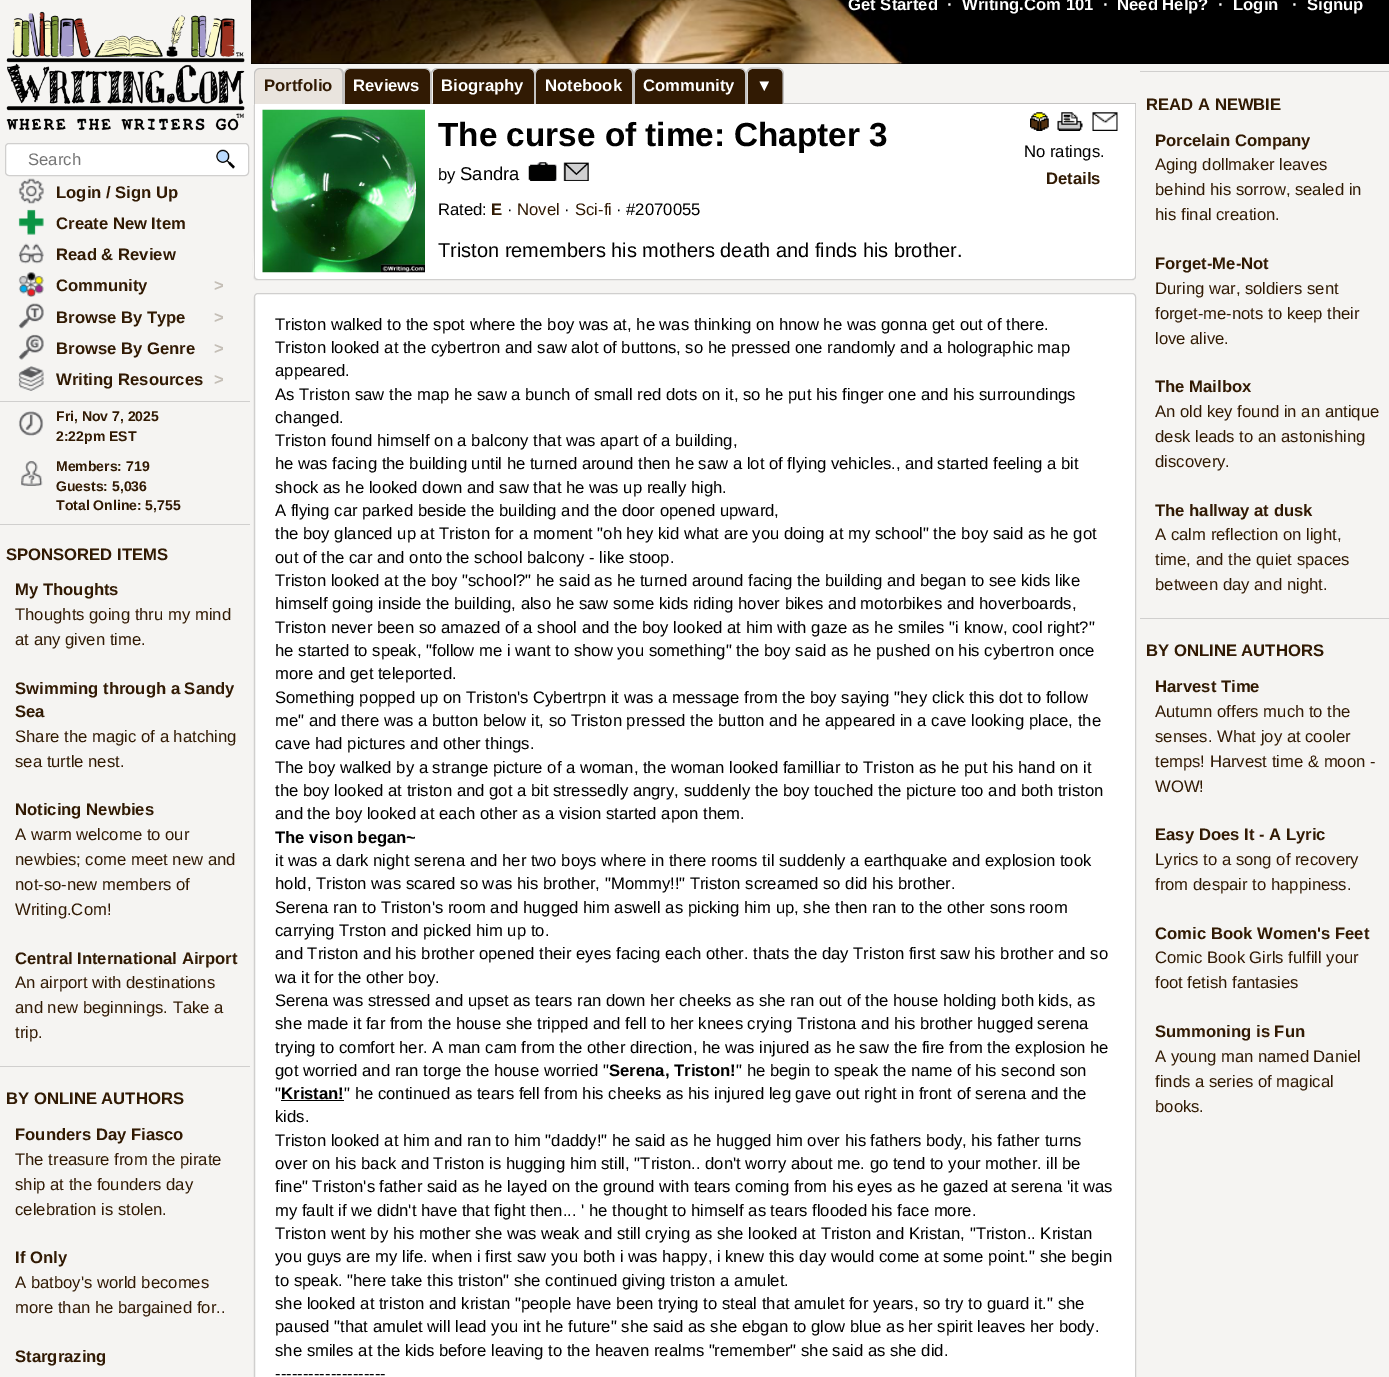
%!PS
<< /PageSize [1389 1377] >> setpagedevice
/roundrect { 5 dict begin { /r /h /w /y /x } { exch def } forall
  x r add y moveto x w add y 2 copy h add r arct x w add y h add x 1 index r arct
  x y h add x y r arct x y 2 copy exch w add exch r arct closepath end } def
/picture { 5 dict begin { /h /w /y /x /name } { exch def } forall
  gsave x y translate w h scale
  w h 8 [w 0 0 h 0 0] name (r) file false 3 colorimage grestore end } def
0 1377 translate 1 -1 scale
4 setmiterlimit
0.961 0.957 0.949 setrgbcolor
0 0 1389 1377 rectfill
0 setgray
251 0 1138 64 rectfill
(img1.rgb) 251 0 659 64 picture
/LiberationSans-Bold [16.67 0 0 -16.67 0 0] selectfont
1 setgray
848 10 moveto (Get Started) show
947 10 moveto (·) show
962 10 moveto (Writing.Com 101) show
1103 10 moveto (·) show
1117 10 moveto (Need Help?) show
1218 10 moveto (·) show
1233 10 moveto (Login) show
1292 10 moveto (·) show
1307 10 moveto (Signup) show
(img2.rgb) 6 11 239 120 picture
5.5 143.5 243 32 3.5 roundrect gsave fill grestore
0.816 0.812 0.808 setrgbcolor
stroke
/LiberationSans-Regular [16.67 0 0 -16.67 0 0] selectfont
0.459 setgray
28 165 moveto (Search) show
(img3.rgb) 216 149 19 20 picture
(img4.rgb) 18 178 26 26 picture
/LiberationSans-Bold [16.67 0 0 -16.67 0 0] selectfont
0.192 0.102 0.012 setrgbcolor
56 198 moveto (Login / Sign Up) show
(img5.rgb) 18 209 26 26 picture
56 229 moveto (Create New Item) show
(img6.rgb) 18 243 26 21 picture
56 260 moveto (Read & Review) show
(img7.rgb) 18 272 26 25 picture
56 291 moveto (Community) show
0.769 0.745 0.714 setrgbcolor
214 291 moveto (>) show
(img8.rgb) 18 303 26 26 picture
0.192 0.102 0.012 setrgbcolor
56 323 moveto (Browse By Type) show
0.769 0.745 0.714 setrgbcolor
214 323 moveto (>) show
(img9.rgb) 18 334 26 26 picture
0.192 0.102 0.012 setrgbcolor
56 354 moveto (Browse By Genre) show
0.769 0.745 0.714 setrgbcolor
214 354 moveto (>) show
(img10.rgb) 18 366 26 25 picture
0.192 0.102 0.012 setrgbcolor
56 385 moveto (Writing Resources) show
0.769 0.745 0.714 setrgbcolor
214 385 moveto (>) show
0.816 0.812 0.808 setrgbcolor
0 401 250 1 rectfill
(img11.rgb) 18 411 26 25 picture
/LiberationSans-Bold [14 0 0 -14 0 0] selectfont
0.192 0.102 0.012 setrgbcolor
56 421 moveto (Fri, Nov 7, 2025) show
56 441 moveto (2:22pm EST) show
(img12.rgb) 21 461 22 25 picture
56 471 moveto (Members: 719) show
56 491 moveto (Guests: 5,036) show
56 510 moveto (Total Online: 5,755) show
0.816 0.812 0.808 setrgbcolor
0 524 250 1 rectfill
/LiberationSans-Bold [16.67 0 0 -16.67 0 0] selectfont
0.192 0.102 0.012 setrgbcolor
6 560 moveto (SPONSORED ITEMS) show
15 595 moveto (My Thoughts) show
/LiberationSans-Regular [16.67 0 0 -16.67 0 0] selectfont
15 620 moveto (Thoughts going thru my mind) show
15 645 moveto (at any given time.) show
/LiberationSans-Bold [16.67 0 0 -16.67 0 0] selectfont
15 694 moveto (Swimming through a Sandy) show
15 717 moveto (Sea) show
/LiberationSans-Regular [16.67 0 0 -16.67 0 0] selectfont
15 742 moveto (Share the magic of a hatching) show
15 767 moveto (sea turtle nest.) show
/LiberationSans-Bold [16.67 0 0 -16.67 0 0] selectfont
15 815 moveto (Noticing Newbies) show
/LiberationSans-Regular [16.67 0 0 -16.67 0 0] selectfont
15 840 moveto (A warm welcome to our) show
15 865 moveto (newbies; come meet new and) show
15 890 moveto (not-so-new members of) show
15 915 moveto (Writing.Com!) show
/LiberationSans-Bold [16.67 0 0 -16.67 0 0] selectfont
15 964 moveto (Central International Airport) show
/LiberationSans-Regular [16.67 0 0 -16.67 0 0] selectfont
15 988 moveto (An airport with destinations) show
15 1013 moveto (and new beginnings. Take a) show
15 1038 moveto (trip.) show
0.816 0.812 0.808 setrgbcolor
0 1066 250 1 rectfill
/LiberationSans-Bold [16.67 0 0 -16.67 0 0] selectfont
0.192 0.102 0.012 setrgbcolor
6 1104 moveto (BY ONLINE AUTHORS) show
15 1140 moveto (Founders Day Fiasco) show
/LiberationSans-Regular [16.67 0 0 -16.67 0 0] selectfont
15 1165 moveto (The treasure from the pirate) show
15 1190 moveto (ship at the founders day) show
15 1215 moveto (celebration is stolen.) show
/LiberationSans-Bold [16.67 0 0 -16.67 0 0] selectfont
15 1263 moveto (If Only) show
/LiberationSans-Regular [16.67 0 0 -16.67 0 0] selectfont
15 1288 moveto (A batboy's world becomes) show
15 1313 moveto (more than he bargained for..) show
/LiberationSans-Bold [16.67 0 0 -16.67 0 0] selectfont
15 1362 moveto (Stargrazing) show
0.914 0.894 0.871 setrgbcolor
newpath 260 69 moveto 338 69 lineto 341 69 343 71 343 74 curveto 343 104 lineto 255 104 lineto 255 74 lineto 255 71 257 69 260 69 curveto closepath fill
0.769 0.765 0.761 setrgbcolor
newpath 260 68 moveto 338 68 lineto 341 68 344 70 344 74 curveto 344 104 lineto 254 104 lineto 254 74 lineto 254 70 257 68 260 68 curveto closepath 260 69 moveto 338 69 lineto 340 69 342 71 342 74 curveto 342 104 lineto 255 104 lineto 255 74 lineto 255 71 257 69 260 69 curveto closepath eofill
0.192 0.102 0.012 setrgbcolor
264 91 moveto (Portfolio) show
newpath 350 69 moveto 425 69 lineto 428 69 430 71 430 74 curveto 430 104 lineto 345 104 lineto 345 74 lineto 345 71 347 69 350 69 curveto closepath fill
0.769 0.765 0.761 setrgbcolor
newpath 350 68 moveto 425 68 lineto 428 68 431 70 431 74 curveto 431 104 lineto 344 104 lineto 344 74 lineto 344 70 347 68 350 68 curveto closepath 350 69 moveto 425 69 lineto 428 69 430 71 430 74 curveto 430 104 lineto 345 104 lineto 345 74 lineto 345 71 347 69 350 69 curveto closepath eofill
1 setgray
353 91 moveto (Reviews) show
0.769 0.765 0.761 setrgbcolor
432 103 704 1 rectfill
0.192 0.102 0.012 setrgbcolor
newpath 438 69 moveto 529 69 lineto 532 69 534 71 534 74 curveto 534 104 lineto 433 104 lineto 433 74 lineto 433 71 435 69 438 69 curveto closepath fill
0.769 0.765 0.761 setrgbcolor
newpath 438 68 moveto 529 68 lineto 532 68 535 70 535 74 curveto 535 104 lineto 431 104 lineto 431 74 lineto 431 70 434 68 438 68 curveto closepath 438 69 moveto 529 69 lineto 532 69 534 71 534 74 curveto 534 104 lineto 432 104 lineto 432 74 lineto 432 71 435 69 438 69 curveto closepath eofill
1 setgray
441 91 moveto (Biography) show
0.192 0.102 0.012 setrgbcolor
newpath 541 69 moveto 628 69 lineto 631 69 633 71 633 74 curveto 633 104 lineto 536 104 lineto 536 74 lineto 536 71 538 69 541 69 curveto closepath fill
0.769 0.765 0.761 setrgbcolor
newpath 541 68 moveto 628 68 lineto 631 68 634 70 634 74 curveto 634 104 lineto 535 104 lineto 535 74 lineto 535 70 538 68 541 68 curveto closepath 541 69 moveto 628 69 lineto 630 69 632 71 632 74 curveto 632 104 lineto 536 104 lineto 536 74 lineto 536 71 538 69 541 69 curveto closepath eofill
1 setgray
545 91 moveto (Notebook) show
0.192 0.102 0.012 setrgbcolor
newpath 640 69 moveto 740 69 lineto 743 69 745 71 745 74 curveto 745 104 lineto 635 104 lineto 635 74 lineto 635 71 637 69 640 69 curveto closepath fill
0.769 0.765 0.761 setrgbcolor
newpath 640 68 moveto 740 68 lineto 743 68 746 70 746 74 curveto 746 104 lineto 634 104 lineto 634 74 lineto 634 70 637 68 640 68 curveto closepath 640 69 moveto 740 69 lineto 743 69 745 71 745 74 curveto 745 104 lineto 635 104 lineto 635 74 lineto 635 71 637 69 640 69 curveto closepath eofill
1 setgray
643 91 moveto (Community) show
0.192 0.102 0.012 setrgbcolor
newpath 753 69 moveto 778 69 lineto 781 69 783 71 783 74 curveto 783 104 lineto 748 104 lineto 748 74 lineto 748 71 750 69 753 69 curveto closepath fill
0.769 0.765 0.761 setrgbcolor
newpath 752.5 67.5 moveto 777.5 67.5 lineto 781 67.5 784 70.5 784 74 curveto 784 104 lineto 746 104 lineto 746 74 lineto 746 70.5 749 67.5 752.5 67.5 curveto closepath 752.5 69 moveto 777.5 69 lineto 780.5 69 782.5 71 782.5 74 curveto 782.5 104 lineto 747.5 104 lineto 747.5 74 lineto 747.5 71 749.5 69 752.5 69 curveto closepath eofill
1 setgray
756 91 moveto (▼) show
0.925 0.922 0.914 setrgbcolor
newpath 253 105 moveto 253 277 lineto 253 279 255 281 257 281 curveto 1131 281 lineto 1132 281 1133 281 1134 280 curveto 258 280 lineto 249 280 254 252 254 248 curveto 254 105 lineto closepath fill
1 setgray
newpath 254 104 moveto 1136 104 lineto 1136 276 lineto 1136 278 1134 280 1132 280 curveto 258 280 lineto 256 280 254 278 254 276 curveto closepath fill
0.816 0.812 0.808 setrgbcolor
newpath 254 104 moveto 1136 104 lineto 1136 276 lineto 1136 278 1135 280 1132 280 curveto 258 280 lineto 255 280 254 278 254 276 curveto closepath 255 104 moveto 1135 104 lineto 1135 276 lineto 1135 278 1134 279 1132 279 curveto 258 279 lineto 256 279 255 278 255 276 curveto closepath eofill
(img13.rgb) 262 109 163 164 picture
/LiberationSans-Bold [33.3 0 0 -33.3 0 0] selectfont
0 setgray
438 146 moveto (The curse of time: Chapter 3) show
/LiberationSans-Regular [16.67 0 0 -16.67 0 0] selectfont
438 180 moveto (by) show
/LiberationSans-Regular [18.5 0 0 -18.5 0 0] selectfont
460 180 moveto (Sandra) show
(img14.rgb) 528 162 29 19 picture
(img15.rgb) 563 162 26 19 picture
(img16.rgb) 1030 112 19 19 picture
(img17.rgb) 1057 112 26 19 picture
(img18.rgb) 1092 112 26 19 picture
/LiberationSans-Regular [16.67 0 0 -16.67 0 0] selectfont
1024 157 moveto (No ratings.) show
/LiberationSans-Bold [16.67 0 0 -16.67 0 0] selectfont
0.192 0.102 0.012 setrgbcolor
1046 184 moveto (Details) show
/LiberationSans-Regular [16.67 0 0 -16.67 0 0] selectfont
0 setgray
438 215 moveto (Rated:) show
/LiberationSans-Bold [16.67 0 0 -16.67 0 0] selectfont
0.192 0.102 0.012 setrgbcolor
491 215 moveto (E) show
/LiberationSans-Regular [16.67 0 0 -16.67 0 0] selectfont
0 setgray
507 215 moveto (·) show
0.192 0.102 0.012 setrgbcolor
517 215 moveto (Novel) show
0 setgray
564 215 moveto (·) show
0.192 0.102 0.012 setrgbcolor
575 215 moveto (Sci-fi) show
0 setgray
616 215 moveto (· #2070055) show
/LiberationSans-Regular [20 0 0 -20 0 0] selectfont
438 257 moveto (Triston remembers his mothers death and finds his brother.) show
0.925 0.922 0.914 setrgbcolor
newpath 254 296 moveto 253 298 lineto 253 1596 lineto 253 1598 255 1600 257 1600 curveto 1131 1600 lineto 1132 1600 1134 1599 1134 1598 curveto 1132 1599 lineto 258 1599 lineto 255 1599 254 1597 254 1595 curveto closepath fill
1 setgray
254.5 293.5 881 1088 3.5 roundrect gsave fill grestore
0.816 0.812 0.808 setrgbcolor
stroke
/LiberationSans-Regular [16.67 0 0 -16.67 0 0] selectfont
0 setgray
275 330 moveto (Triston walked to the spot where the boy was at, he was thinking on hnow he was gonna get out of there.) show
275 353 moveto (Triston looked at the cybertron and saw alot of buttons, so he pressed one randomly and a holographic map) show
275 376 moveto (appeared.) show
275 400 moveto (As Triston saw the map he saw a bunch of small red dots on it, so he put his finger one and his surroundings) show
275 423 moveto (changed.) show
275 446 moveto (Triston found himself on a balcony that was apart of a building,) show
275 469 moveto (he was facing the building until he turned around then he saw a lot of flying vehicles., and started feeling a bit) show
275 493 moveto (shock as he looked down and saw that he was up really high.) show
275 516 moveto (A flying car parked beside the building and the door opened upward,) show
275 539 moveto (the boy glanced up at Triston for a moment "oh hey kid what are you doing at my school" the boy said as he got) show
275 563 moveto (out of the car and onto the school balcony - like stoop.) show
275 586 moveto (Triston looked at the boy "school?" he said as he turned around facing the building and began to see kids like) show
275 609 moveto (himself going inside the building, also he saw some kids riding hover bikes and motorbikes and hoverboards,) show
275 633 moveto (Triston never been so amazed of a shool and the boy looked at him with gaze as he smiles "i know, cool right?") show
275 656 moveto (he started to speak, "follow me i want to show you something" the boy said as he pushed on his cybertron once) show
275 679 moveto (more and get teleported.) show
275 703 moveto (Something popped up on Triston's Cybertrpn it was a message from the boy saying "hey click this dot to follow) show
275 726 moveto (me" and there was a button below it, so Triston pressed the button and he appeared in a cave looking place, the) show
275 749 moveto (cave had pictures and other things.) show
275 773 moveto (The boy walked by a strange picture of a woman, the woman looked familliar to Triston as he put his hand on it) show
275 796 moveto (the boy looked at triston and got a bit stressedly angry, suddenly the boy touched the picture too and both triston) show
275 819 moveto (and the boy looked at each other as a vision started apon them.) show
/LiberationSans-Bold [16.67 0 0 -16.67 0 0] selectfont
275 843 moveto (The vison began~) show
/LiberationSans-Regular [16.67 0 0 -16.67 0 0] selectfont
275 866 moveto (it was a dark night serena and her two boys where in there rooms til suddenly a earthquake and explosion took) show
275 889 moveto (hold, Triston was scared so was his brother, "Mommy!!" Triston screamed so did his brother.) show
275 913 moveto (Serena ran to Triston's room and hugged him aswell as picking him up, she then ran to the other sons room) show
275 936 moveto (carrying Trston and picked him up to.) show
275 959 moveto (and Triston and his brother opened their eyes facing each other. thats the day Triston first saw his brother and so) show
275 983 moveto (wa it for the other boy.) show
275 1006 moveto (Serena was stressed and upset as tears ran down her cheeks as she ran out of the house holding both kids, as) show
275 1029 moveto (she made it far from the house she tripped and fell to her knees crying Tristona and his brother hugged serena) show
275 1053 moveto (trying to comfort her. A man cam from the other direction, he was injured as he saw the fire from the explosion he) show
275 1076 moveto (got worried and ran torge the house worried ") show
/LiberationSans-Bold [16.67 0 0 -16.67 0 0] selectfont
609 1076 moveto (Serena, Triston!) show
/LiberationSans-Regular [16.67 0 0 -16.67 0 0] selectfont
736 1076 moveto (" he begin to speak the name of his second son) show
275 1099 moveto (") show
/LiberationSans-Bold [16.67 0 0 -16.67 0 0] selectfont
281 1099 moveto (Kristan!) show
281 1100 63 1 rectfill
/LiberationSans-Regular [16.67 0 0 -16.67 0 0] selectfont
344 1099 moveto (" he continued as tears fell from his cheeks as his injured leg gave out right in front of serena and the) show
275 1122 moveto (kids.) show
275 1146 moveto (Triston looked at him and ran to him "daddy!" he said as he hugged him over his fathers body, his father turns) show
275 1169 moveto (over on his back and Triston is hugging him still, "Triston.. don't worry about me. go tend to your mother. ill be) show
275 1192 moveto (fine" Triston's father said as he layed on the ground with tears coming from his eyes as he gazed at serena 'it was) show
275 1216 moveto (my fault if we didn't have that fight then... ' he thought to himself as tears flooded his face more.) show
275 1239 moveto (Triston went by his mother she was weak and still crying as she looked at Triston and Kristan, "Triston.. Kristan) show
275 1262 moveto (you guys are my life. when i first saw you both i was happy, i knew this day would come at some point." she begin) show
275 1286 moveto (to speak. "here take this triston" she continued giving triston a amulet.) show
275 1309 moveto (she looked at triston and kristan "people have been trying to steal that amulet for years, so try to guard it." she) show
275 1332 moveto (paused "that amulet will lead you int he future" she said as she ebgan to glow blue as her spirit leaves her body.) show
275 1356 moveto (she smiles at the kids before leaving to the heaven realms "remember" she said as she did.) show
275 1379 moveto (--------------------) show
0.816 0.812 0.808 setrgbcolor
1140 71 249 1 rectfill
/LiberationSans-Bold [16.67 0 0 -16.67 0 0] selectfont
0.192 0.102 0.012 setrgbcolor
1146 110 moveto (READ A NEWBIE) show
1155 146 moveto (Porcelain Company) show
/LiberationSans-Regular [16.67 0 0 -16.67 0 0] selectfont
1155 170 moveto (Aging dollmaker leaves) show
1155 195 moveto (behind his sorrow, sealed in) show
1155 220 moveto (his final creation.) show
/LiberationSans-Bold [16.67 0 0 -16.67 0 0] selectfont
1155 269 moveto (Forget-Me-Not) show
/LiberationSans-Regular [16.67 0 0 -16.67 0 0] selectfont
1155 294 moveto (During war, soldiers sent) show
1155 319 moveto (forget-me-nots to keep their) show
1155 344 moveto (love alive.) show
/LiberationSans-Bold [16.67 0 0 -16.67 0 0] selectfont
1155 392 moveto (The Mailbox) show
/LiberationSans-Regular [16.67 0 0 -16.67 0 0] selectfont
1155 417 moveto (An old key found in an antique) show
1155 442 moveto (desk leads to an astonishing) show
1155 467 moveto (discovery.) show
/LiberationSans-Bold [16.67 0 0 -16.67 0 0] selectfont
1155 516 moveto (The hallway at dusk) show
/LiberationSans-Regular [16.67 0 0 -16.67 0 0] selectfont
1155 540 moveto (A calm reflection on light,) show
1155 565 moveto (time, and the quiet spaces) show
1155 590 moveto (between day and night.) show
0.816 0.812 0.808 setrgbcolor
1140 618 249 1 rectfill
/LiberationSans-Bold [16.67 0 0 -16.67 0 0] selectfont
0.192 0.102 0.012 setrgbcolor
1146 656 moveto (BY ONLINE AUTHORS) show
1155 692 moveto (Harvest Time) show
/LiberationSans-Regular [16.67 0 0 -16.67 0 0] selectfont
1155 717 moveto (Autumn offers much to the) show
1155 742 moveto (senses. What joy at cooler) show
1155 767 moveto (temps! Harvest time & moon -) show
1155 792 moveto (WOW!) show
/LiberationSans-Bold [16.67 0 0 -16.67 0 0] selectfont
1155 840 moveto (Easy Does It - A Lyric) show
/LiberationSans-Regular [16.67 0 0 -16.67 0 0] selectfont
1155 865 moveto (Lyrics to a song of recovery) show
1155 890 moveto (from despair to happiness.) show
/LiberationSans-Bold [16.67 0 0 -16.67 0 0] selectfont
1155 939 moveto (Comic Book Women's Feet) show
/LiberationSans-Regular [16.67 0 0 -16.67 0 0] selectfont
1155 963 moveto (Comic Book Girls fulfill your) show
1155 988 moveto (foot fetish fantasies) show
/LiberationSans-Bold [16.67 0 0 -16.67 0 0] selectfont
1155 1037 moveto (Summoning is Fun) show
/LiberationSans-Regular [16.67 0 0 -16.67 0 0] selectfont
1155 1062 moveto (A young man named Daniel) show
1155 1087 moveto (finds a series of magical) show
1155 1112 moveto (books.) show
showpage
